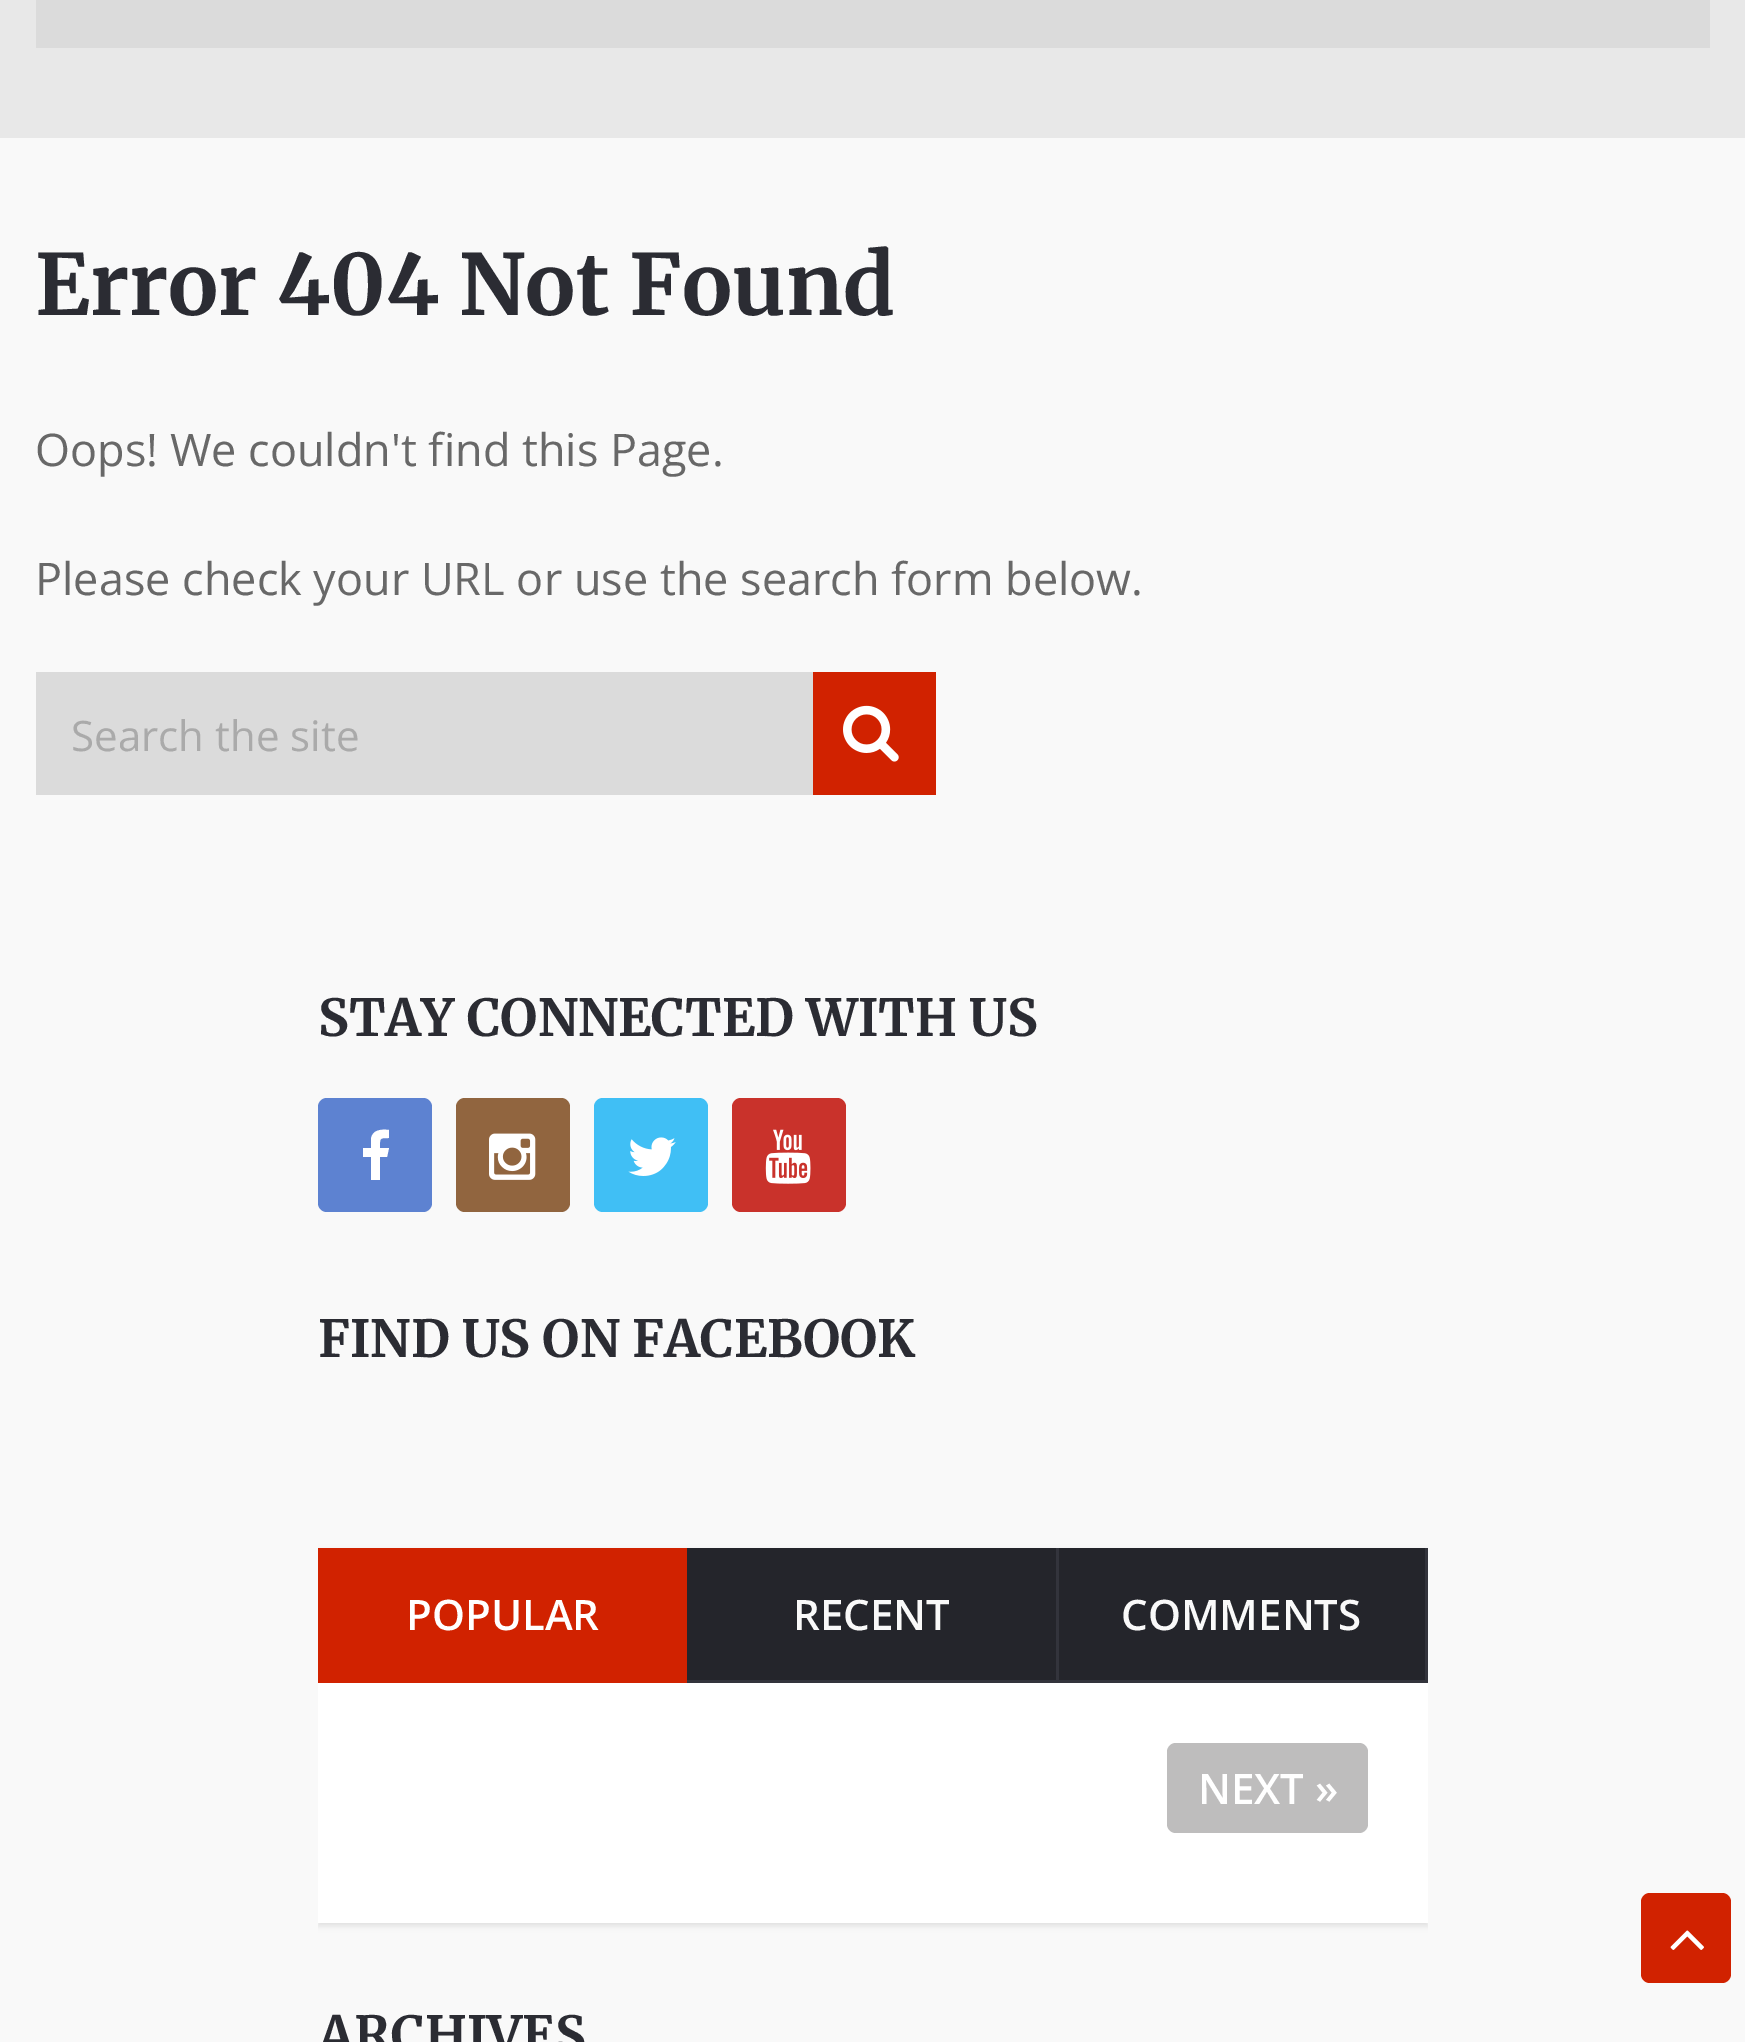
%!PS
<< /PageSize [1745 2042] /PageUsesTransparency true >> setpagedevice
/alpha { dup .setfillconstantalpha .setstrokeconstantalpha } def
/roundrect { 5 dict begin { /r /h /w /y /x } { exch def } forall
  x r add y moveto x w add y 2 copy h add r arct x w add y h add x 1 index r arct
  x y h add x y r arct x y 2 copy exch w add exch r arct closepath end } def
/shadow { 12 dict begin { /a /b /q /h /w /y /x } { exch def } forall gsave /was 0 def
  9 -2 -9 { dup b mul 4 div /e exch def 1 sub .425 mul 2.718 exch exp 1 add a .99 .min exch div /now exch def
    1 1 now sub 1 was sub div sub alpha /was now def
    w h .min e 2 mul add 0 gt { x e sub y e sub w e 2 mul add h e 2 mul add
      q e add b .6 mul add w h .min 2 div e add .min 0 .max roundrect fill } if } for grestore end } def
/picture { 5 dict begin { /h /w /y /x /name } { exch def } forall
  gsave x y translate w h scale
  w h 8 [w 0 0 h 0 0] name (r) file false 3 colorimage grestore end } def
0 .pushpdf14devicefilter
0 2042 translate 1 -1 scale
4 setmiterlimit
0.976 setgray
0 0 1745 2042 rectfill
0.91 setgray
0 0 1745 138 rectfill
0.859 setgray
36 0 1674 48 rectfill
/Merriweather-Light [84 0 0 -84 0 0] selectfont
0.169 0.173 0.2 setrgbcolor
35 315 moveto (Error 404 Not Found) show
/OpenSans-Regular [45 0 0 -45 0 0] selectfont
0.408 setgray
35 466 moveto (Oops! We couldn't find this Page.) show
35 595 moveto (Please check your URL or use the search form below.) show
0.859 setgray
36 672 777 123 rectfill
/OpenSans-Regular [42 0 0 -42 0 0] selectfont
0.667 setgray
71 751 moveto (Search the site) show
0.82 0.133 0 setrgbcolor
813 672 123 123 rectfill
(img1.rgb) 843 705 56 57 picture
/Merriweather-Light [51 0 0 -51 0 0] selectfont
0.169 0.173 0.2 setrgbcolor
318 1036 moveto (STAY CONNECTED WITH US) show
0.365 0.51 0.82 setrgbcolor
318 1098 114 114 9 roundrect fill
1 setgray
newpath 389 1130 moveto 389 1138 lineto 379 1138 380 1138 380 1148 curveto 389 1148 lineto 387 1157 lineto 380 1157 lineto 380 1180 lineto 371 1180 lineto 371 1157 lineto 363 1157 lineto 363 1148 lineto 371 1148 lineto 371 1139 lineto 372 1130 381 1129 389 1130 curveto closepath fill
0.569 0.396 0.247 setrgbcolor
456 1098 114 114 9 roundrect fill
(img2.rgb) 489 1133 47 47 picture
0.251 0.749 0.961 setrgbcolor
594 1098 114 114 9 roundrect fill
(img3.rgb) 628 1137 48 39 picture
0.788 0.196 0.169 setrgbcolor
732 1098 114 114 9 roundrect fill
(img4.rgb) 765 1129 46 55 picture
0.169 0.173 0.2 setrgbcolor
318 1357 moveto (FIND US ON FACEBOOK) show
gsave
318 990 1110 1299 rectclip
0 setgray
318 1551 1110 375 0 3 0.1 shadow
grestore
0.82 0.133 0 setrgbcolor
318 1548 369 135 rectfill
/OpenSans-SemiBold [42 0 0 -42 0 0] selectfont
1 setgray
406 1630 moveto (POPULAR) show
0.141 0.145 0.169 setrgbcolor
687 1548 369 132 rectfill
0.2 0.204 0.235 setrgbcolor
1056 1548 3 135 rectfill
687 1680 372 3 rectfill
0.976 setgray
793 1630 moveto (RECENT) show
0.141 0.145 0.169 setrgbcolor
1059 1548 366 132 rectfill
0.2 0.204 0.235 setrgbcolor
1425 1548 3 135 rectfill
1059 1680 369 3 rectfill
0.976 setgray
1121 1630 moveto (COMMENTS) show
1 setgray
318 1683 1110 240 rectfill
0.745 0.741 0.741 setrgbcolor
1167 1743 201 90 9 roundrect fill
1 setgray
1198 1804 moveto (NEXT ») show
/Merriweather-Light [51 0 0 -51 0 0] selectfont
0.169 0.173 0.2 setrgbcolor
318 2053 moveto (ARCHIVES) show
0.82 0.133 0 setrgbcolor
1641 1893 90 90 9 roundrect fill
(img5.rgb) 1670 1930 34 20 picture
.poppdf14devicefilter showpage
